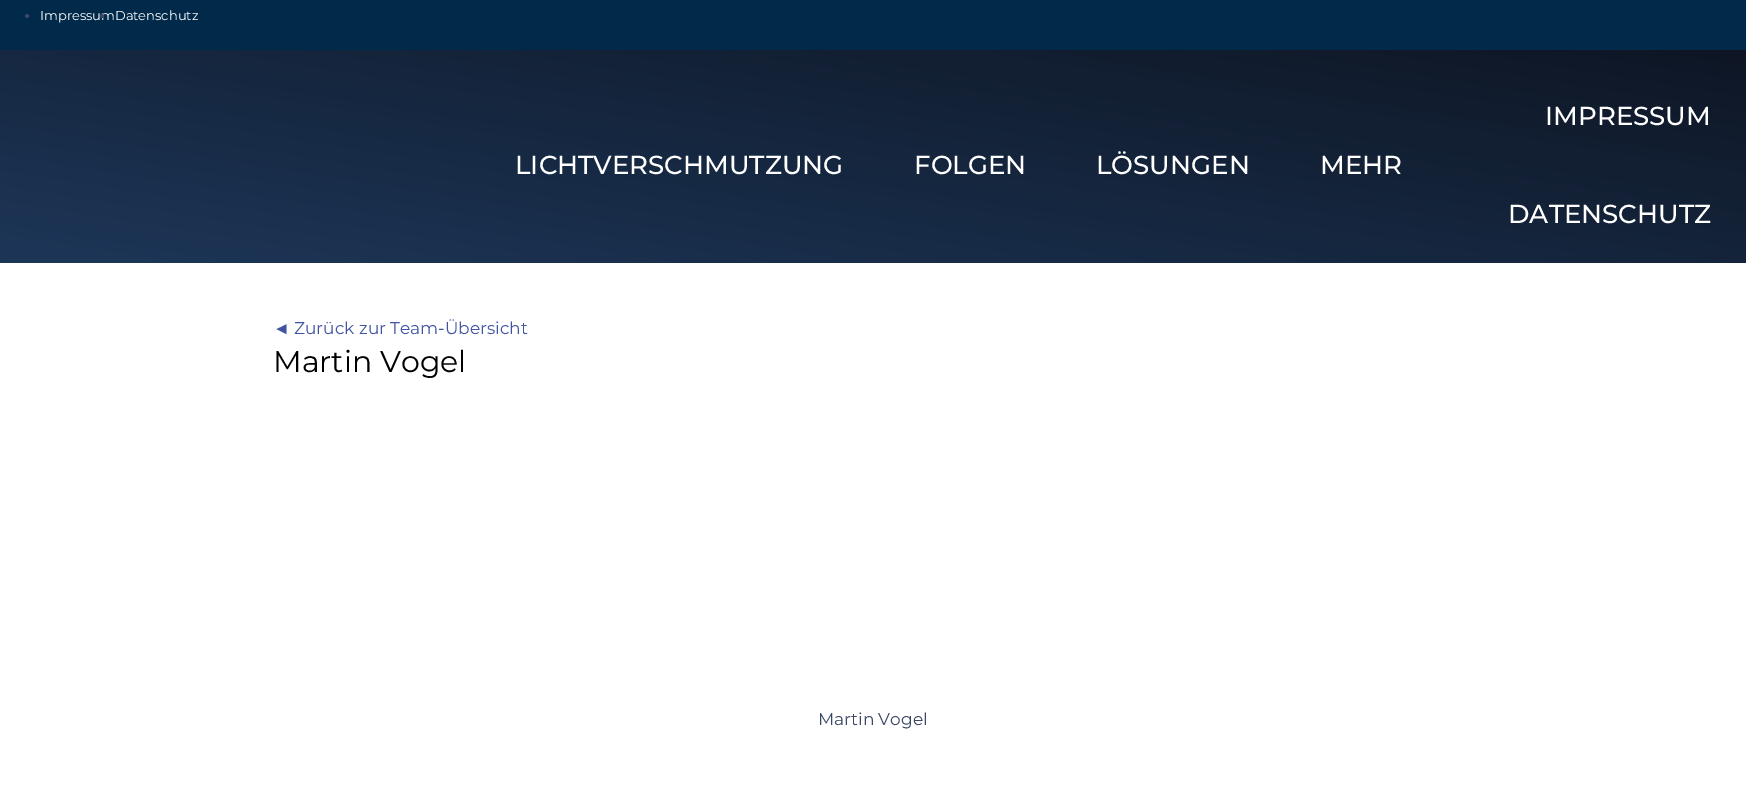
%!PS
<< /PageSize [1746 787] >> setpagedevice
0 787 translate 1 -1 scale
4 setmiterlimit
1 setgray
0 0 1746 787 rectfill
0.004 0.161 0.29 setrgbcolor
0 0 1746 50 rectfill
0.227 0.275 0.392 setrgbcolor
newpath 27 16 2 0 360 arc closepath fill
/Montserrat-Regular [13 0 0 -13 0 0] selectfont
1 setgray
40 20 moveto (ImpressumDatenschutz) show
0.227 0.275 0.392 setrgbcolor
newpath 102 16 2 0 360 arc closepath fill
gsave newpath 0 50 moveto 1746 50 lineto 1746 263 lineto 0 263 lineto closepath clip newpath
<< /ShadingType 2 /ColorSpace /DeviceRGB /Coords [911 -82 835 395] /Extend [true true] /Function << /FunctionType 3 /Domain [0 1] /Functions [<< /FunctionType 2 /Domain [0 1] /C0 [0.055 0.086 0.145] /C1 [0.055 0.086 0.145] /N 1 >> << /FunctionType 2 /Domain [0 1] /C0 [0.055 0.086 0.145] /C1 [0.114 0.212 0.345] /N 1 >>] /Bounds [0.01] /Encode [0 1 0 1] >> >> shfill grestore
/Montserrat-Medium [26 0 0 -26 0 0] selectfont
1 setgray
515 174 moveto (LICHTVERSCHMUTZUNG) show
914 174 moveto (FOLGEN) show
1096 174 moveto (LÖSUNGEN) show
1320 174 moveto (MEHR) show
1545 125 moveto (IMPRESSUM) show
1508 223 moveto (DATENSCHUTZ) show
/LiberationSans-Regular [17 0 0 -17 0 0] selectfont
0.251 0.325 0.627 setrgbcolor
273 334 moveto (◄) show
/Montserrat-Regular [17 0 0 -17 0 0] selectfont
294 334 moveto (Zurück zur Team-Übersicht) show
/Montserrat-Regular [30 0 0 -30 0 0] selectfont
0 setgray
273 372 moveto (Martin Vogel) show
/Montserrat-Regular [17 0 0 -17 0 0] selectfont
0.227 0.275 0.392 setrgbcolor
818 725 moveto (Martin Vogel) show
showpage
